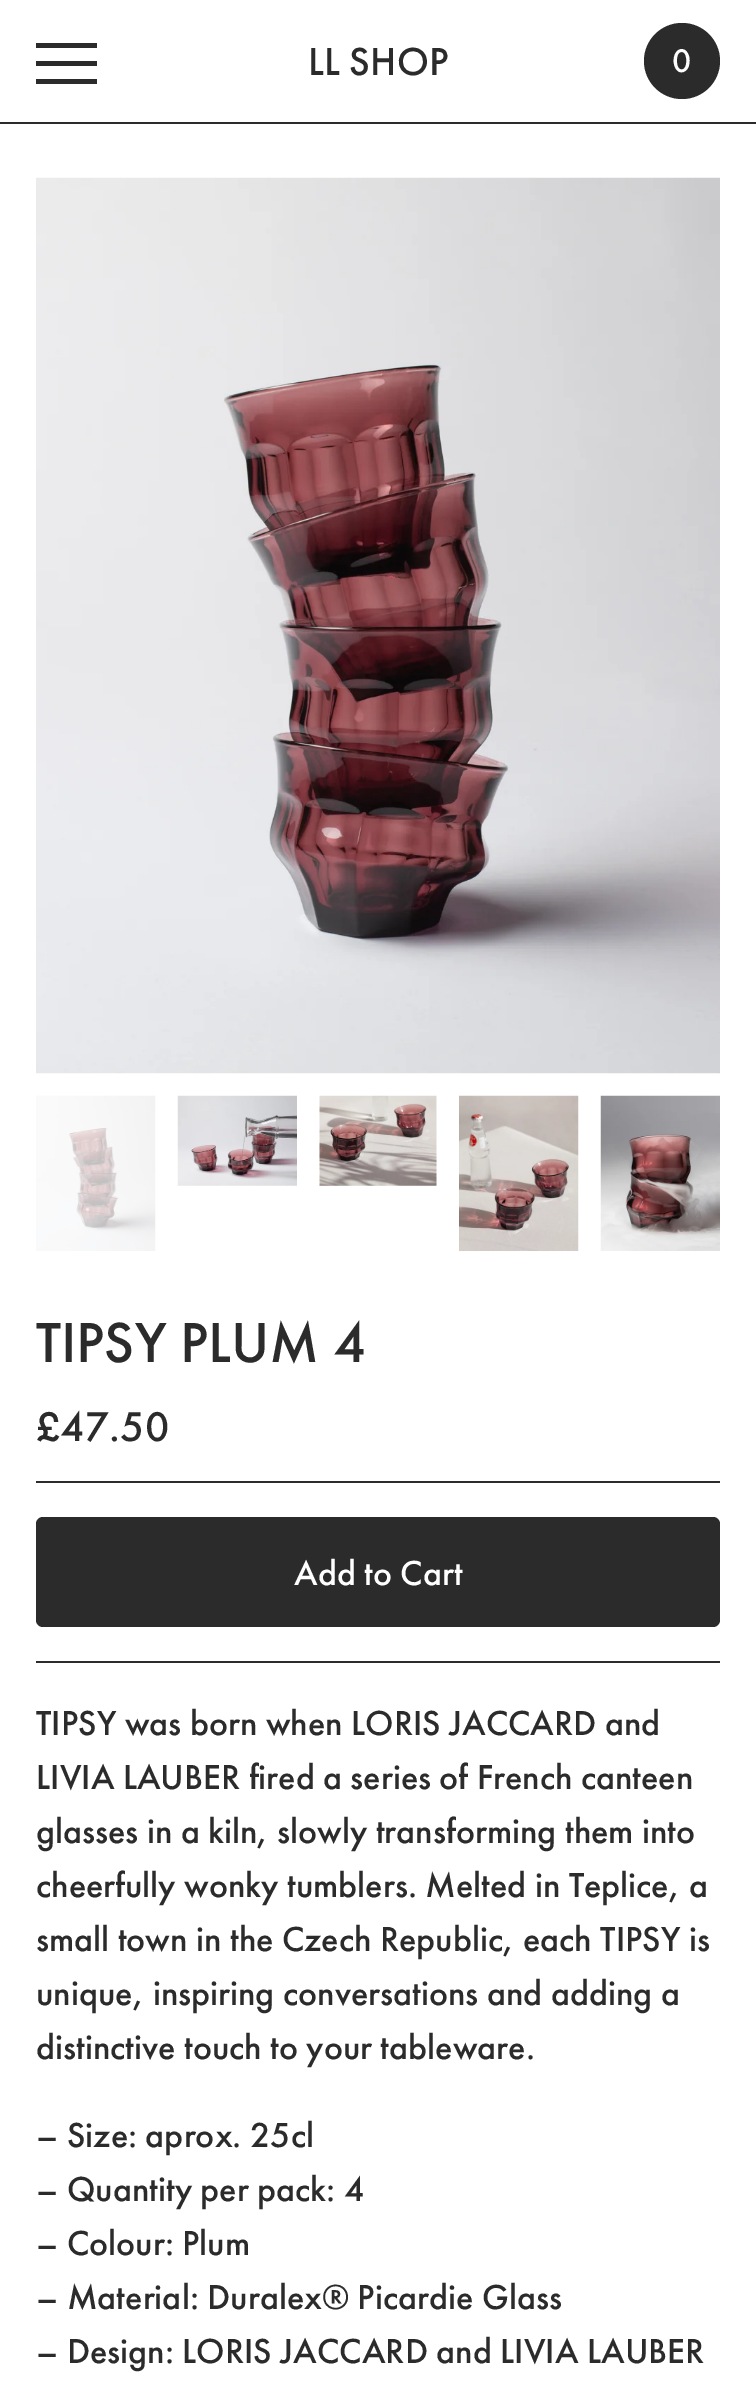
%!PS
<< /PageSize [756 2387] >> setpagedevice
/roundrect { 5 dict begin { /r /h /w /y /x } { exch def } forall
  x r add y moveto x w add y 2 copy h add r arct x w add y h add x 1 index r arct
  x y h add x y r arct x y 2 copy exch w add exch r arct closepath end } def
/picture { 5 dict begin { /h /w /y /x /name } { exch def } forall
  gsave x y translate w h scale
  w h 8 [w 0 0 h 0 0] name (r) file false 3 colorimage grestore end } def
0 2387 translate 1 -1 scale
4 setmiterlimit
1 setgray
0 0 756 2387 rectfill
0.169 setgray
0 122 756 2 rectfill
36 61 61 5 rectfill
36 43 61 5 rectfill
36 79 61 5 rectfill
/FuturaPT-Medium [40.5 0 0 -40.5 0 0] selectfont
308 75 moveto (LL SHOP) show
newpath 682 61 38 0 360 arc closepath fill
/FuturaPT-Medium [34 0 0 -34 0 0] selectfont
1 setgray
672 72 moveto (0) show
(img1.rgb) 36 177 684 897 picture
(img2.rgb) 36 1095 120 156 picture
(img3.rgb) 177 1095 120 91 picture
(img4.rgb) 319 1095 118 91 picture
(img5.rgb) 459 1095 120 156 picture
(img6.rgb) 600 1095 120 156 picture
/FuturaPT-Medium [58.5 0 0 -58.5 0 0] selectfont
0.169 setgray
36 1362 moveto (TIPSY PLUM 4) show
/FuturaPT-Medium [43 0 0 -43 0 0] selectfont
36 1441 moveto (£47.50) show
36 1481 684 2 rectfill
36 1517 684 110 7 roundrect fill
/FuturaPT-Medium [36 0 0 -36 0 0] selectfont
1 setgray
294 1585 moveto (Add to Cart) show
0.169 setgray
36 1661 684 2 rectfill
36 1735 moveto (TIPSY was born when LORIS JACCARD and) show
36 1789 moveto (LIVIA LAUBER fired a series of French canteen) show
36 1843 moveto (glasses in a kiln, slowly transforming them into) show
36 1897 moveto (cheerfully wonky tumblers. Melted in Teplice, a) show
36 1951 moveto (small town in the Czech Republic, each TIPSY is) show
36 2005 moveto (unique, inspiring conversations and adding a) show
36 2059 moveto (distinctive touch to your tableware.) show
36 2147 moveto (– Size: aprox. 25cl) show
36 2201 moveto (– Quantity per pack: 4) show
36 2255 moveto (– Colour: Plum) show
36 2309 moveto (– Material: Duralex® Picardie Glass) show
36 2363 moveto (– Design: LORIS JACCARD and LIVIA LAUBER) show
showpage
